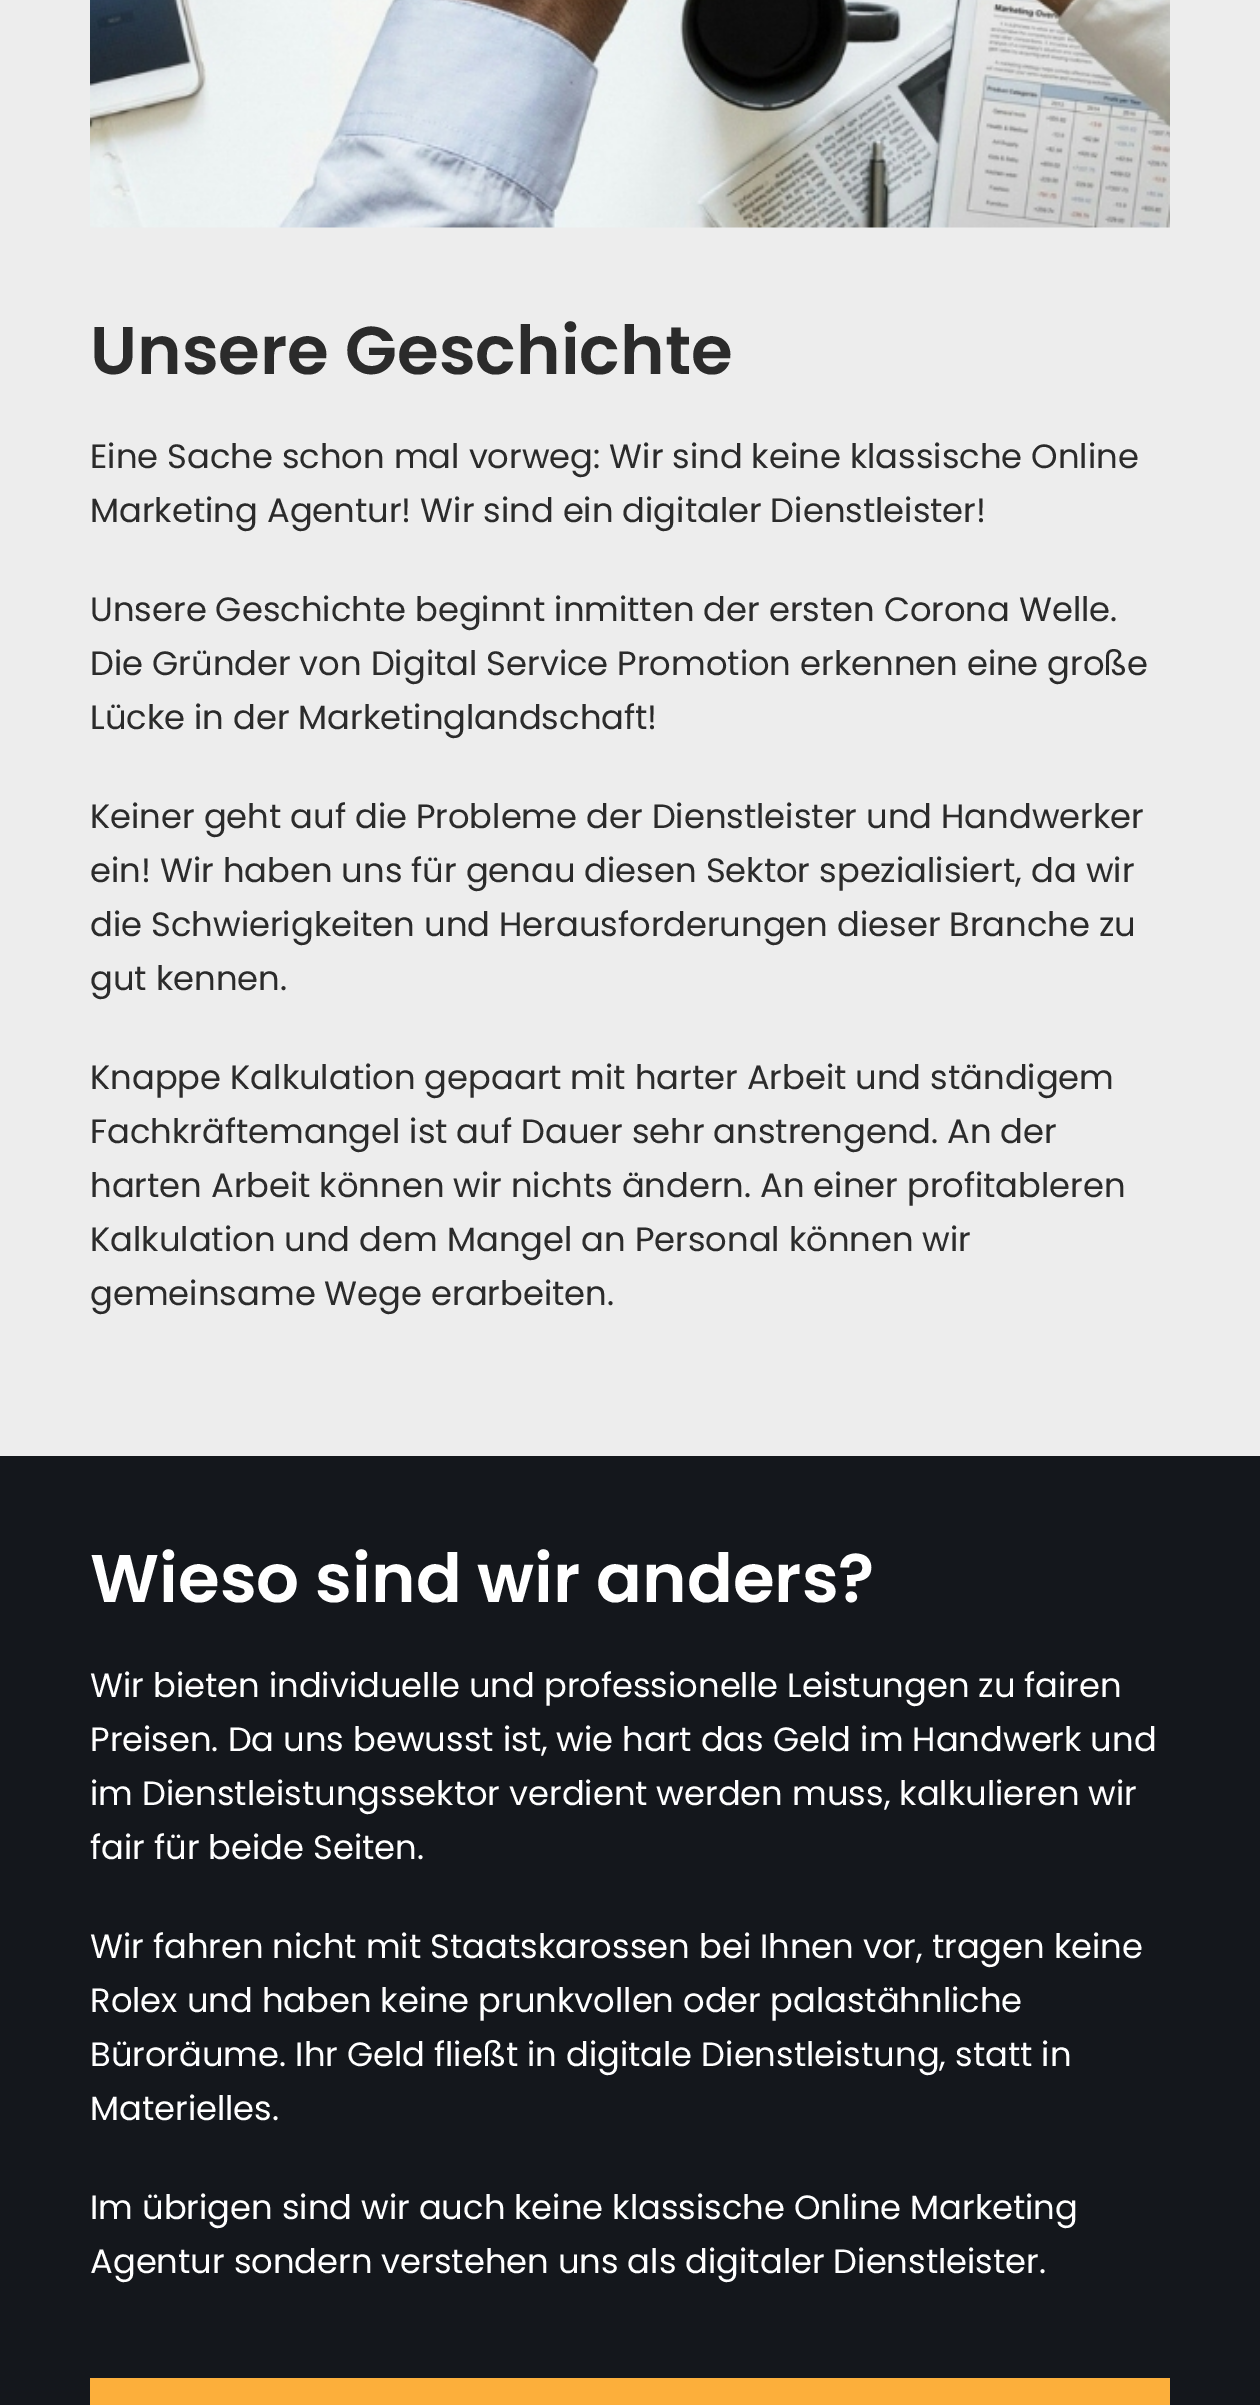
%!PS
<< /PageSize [1260 2405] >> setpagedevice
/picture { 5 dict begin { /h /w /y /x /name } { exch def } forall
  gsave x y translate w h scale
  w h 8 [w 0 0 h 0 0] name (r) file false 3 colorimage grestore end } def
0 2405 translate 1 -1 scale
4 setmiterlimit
0.929 setgray
0 0 1260 2405 rectfill
(img1.rgb) 90 0 1080 228 picture
/Poppins-SemiBold [67.5 0 0 -67.5 0 0] selectfont
0.169 setgray
90 374 moveto (Unsere Geschichte) show
/Poppins-Regular [33.75 0 0 -33.75 0 0] selectfont
90 468 moveto (Eine Sache schon mal vorweg: Wir sind keine klassische Online) show
90 522 moveto (Marketing Agentur! Wir sind ein digitaler Dienstleister!) show
90 621 moveto (Unsere Geschichte beginnt inmitten der ersten Corona Welle.) show
90 675 moveto (Die Gründer von Digital Service Promotion erkennen eine große) show
90 729 moveto (Lücke in der Marketinglandschaft!) show
90 828 moveto (Keiner geht auf die Probleme der Dienstleister und Handwerker) show
90 882 moveto (ein! Wir haben uns für genau diesen Sektor spezialisiert, da wir) show
90 936 moveto (die Schwierigkeiten und Herausforderungen dieser Branche zu) show
90 990 moveto (gut kennen.) show
90 1089 moveto (Knappe Kalkulation gepaart mit harter Arbeit und ständigem) show
90 1143 moveto (Fachkräftemangel ist auf Dauer sehr anstrengend. An der) show
90 1197 moveto (harten Arbeit können wir nichts ändern. An einer profitableren) show
90 1251 moveto (Kalkulation und dem Mangel an Personal können wir) show
90 1305 moveto (gemeinsame Wege erarbeiten.) show
0.078 0.09 0.11 setrgbcolor
0 1456 1260 949 rectfill
/Poppins-SemiBold [67.5 0 0 -67.5 0 0] selectfont
1 setgray
90 1602 moveto (Wieso sind wir anders?) show
/Poppins-Regular [33.75 0 0 -33.75 0 0] selectfont
90 1697 moveto (Wir bieten individuelle und professionelle Leistungen zu fairen) show
90 1751 moveto (Preisen. Da uns bewusst ist, wie hart das Geld im Handwerk und) show
90 1805 moveto (im Dienstleistungssektor verdient werden muss, kalkulieren wir) show
90 1859 moveto (fair für beide Seiten.) show
90 1958 moveto (Wir fahren nicht mit Staatskarossen bei Ihnen vor, tragen keine) show
90 2012 moveto (Rolex und haben keine prunkvollen oder palastähnliche) show
90 2066 moveto (Büroräume. Ihr Geld fließt in digitale Dienstleistung, statt in) show
90 2120 moveto (Materielles.) show
90 2219 moveto (Im übrigen sind wir auch keine klassische Online Marketing) show
90 2273 moveto (Agentur sondern verstehen uns als digitaler Dienstleister.) show
0.988 0.686 0.231 setrgbcolor
90 2378 1080 27 rectfill
showpage
